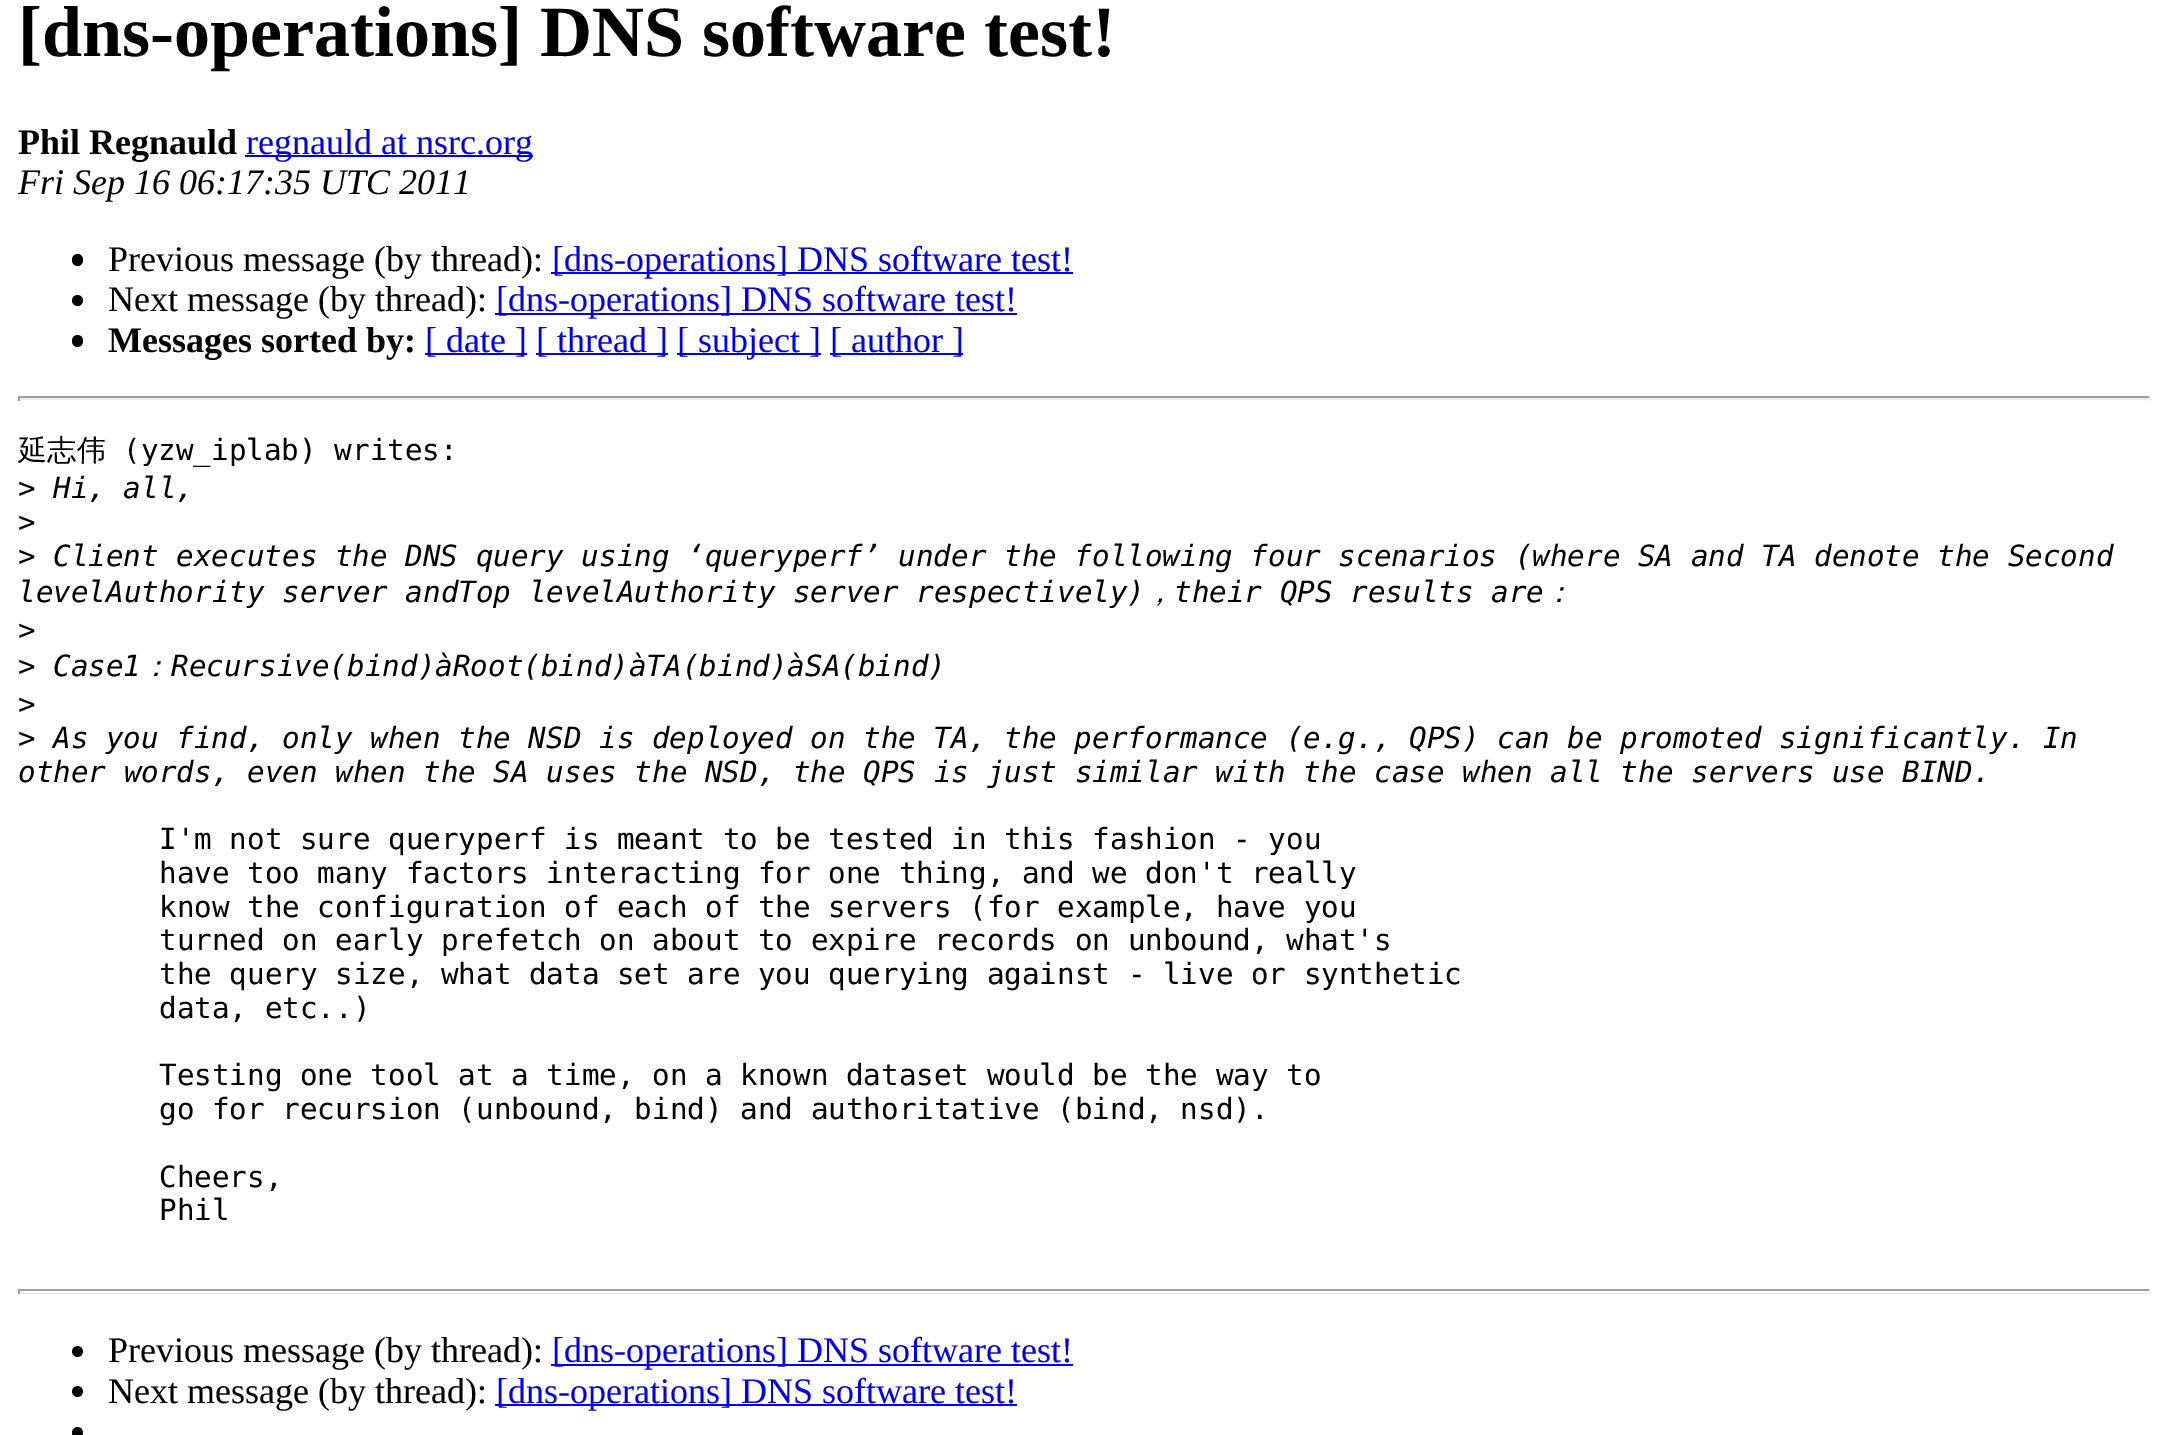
%!PS
<< /PageSize [2168 1435] >> setpagedevice
/roundrect { 5 dict begin { /r /h /w /y /x } { exch def } forall
  x r add y moveto x w add y 2 copy h add r arct x w add y h add x 1 index r arct
  x y h add x y r arct x y 2 copy exch w add exch r arct closepath end } def
0 1435 translate 1 -1 scale
4 setmiterlimit
1 setgray
0 0 2168 1435 rectfill
/LiberationSerif-Bold [72 0 0 -72 0 0] selectfont
0 setgray
18 56 moveto ([dns-operations] DNS software test!) show
/LiberationSerif-Bold [36 0 0 -36 0 0] selectfont
18 154 moveto (Phil Regnauld) show
0 0 0.933 setrgbcolor
245 155 288 2 rectfill
/LiberationSerif-Regular [36 0 0 -36 0 0] selectfont
246 154 moveto (regnauld at nsrc.org) show
/LiberationSerif-Italic [36 0 0 -36 0 0] selectfont
0 setgray
18 194 moveto (Fri Sep 16 06:17:35 UTC 2011) show
72 254 11 12 5.5 roundrect fill
/LiberationSerif-Regular [36 0 0 -36 0 0] selectfont
108 271 moveto (Previous message \(by thread\):) show
0 0 0.933 setrgbcolor
551 272 522 2 rectfill
552 271 moveto ([dns-operations] DNS software test!) show
0 setgray
newpath 77.5 300.5 5.5 0 360 arc closepath fill
108 311 moveto (Next message \(by thread\):) show
0 0 0.933 setrgbcolor
495 313 522 2 rectfill
496 311 moveto ([dns-operations] DNS software test!) show
0 setgray
72 335 11 12 5.5 roundrect fill
/LiberationSerif-Bold [36 0 0 -36 0 0] selectfont
108 352 moveto (Messages sorted by:) show
0 0 0.933 setrgbcolor
425 353 102 2 rectfill
/LiberationSerif-Regular [36 0 0 -36 0 0] selectfont
425 352 moveto ([ date ]) show
536 353 132 2 rectfill
536 352 moveto ([ thread ]) show
677 353 144 2 rectfill
677 352 moveto ([ subject ]) show
830 353 133 2 rectfill
830 352 moveto ([ author ]) show
0.624 setgray
18 396 2133 2 rectfill
0.933 setgray
2149 396 2 5 rectfill
18 398 2133 2 rectfill
0.624 setgray
18 396 2 5 rectfill
/WenQuanYiZenHei-Medium [29.25 0 0 -29.25 0 0] selectfont
0 setgray
18 460 moveto (延志伟) show
/DejaVuSansMono-Regular [29.25 0 0 -29.25 0 0] selectfont
123 460 moveto (\(yzw_iplab\) writes:) show
18 498 moveto (>) show
/DejaVuSansMono-Italic [29.25 0 0 -29.25 0 0] selectfont
53 498 moveto (Hi, all,) show
/DejaVuSansMono-Regular [29.25 0 0 -29.25 0 0] selectfont
18 532 moveto (>) show
18 566 moveto (>) show
/DejaVuSansMono-Italic [29.25 0 0 -29.25 0 0] selectfont
53 566 moveto (Client executes the DNS query using ‘queryperf’ under the following four scenarios \(where SA and TA denote the Second) show
18 602 moveto (levelAuthority server andTop levelAuthority server respectively\)) show
/WenQuanYiZenHei-MediumItalic [29.25 0 0 -29.25 0 0] selectfont
1145 602 moveto (，) show
/DejaVuSansMono-Italic [29.25 0 0 -29.25 0 0] selectfont
1174 602 moveto (their QPS results are) show
/WenQuanYiZenHei-MediumItalic [29.25 0 0 -29.25 0 0] selectfont
1544 602 moveto (：) show
/DejaVuSansMono-Regular [29.25 0 0 -29.25 0 0] selectfont
18 640 moveto (>) show
18 676 moveto (>) show
/DejaVuSansMono-Italic [29.25 0 0 -29.25 0 0] selectfont
53 676 moveto (Case1) show
/WenQuanYiZenHei-MediumItalic [29.25 0 0 -29.25 0 0] selectfont
141 676 moveto (：) show
/DejaVuSansMono-Italic [29.25 0 0 -29.25 0 0] selectfont
171 676 moveto (Recursive\(bind\)àRoot\(bind\)àTA\(bind\)àSA\(bind\)) show
/DejaVuSansMono-Regular [29.25 0 0 -29.25 0 0] selectfont
18 714 moveto (>) show
18 748 moveto (>) show
/DejaVuSansMono-Italic [29.25 0 0 -29.25 0 0] selectfont
53 748 moveto (As you find, only when the NSD is deployed on the TA, the performance \(e.g., QPS\) can be promoted significantly. In) show
18 782 moveto (other words, even when the SA uses the NSD, the QPS is just similar with the case when all the servers use BIND.) show
/DejaVuSansMono-Regular [29.25 0 0 -29.25 0 0] selectfont
159 849 moveto (I'm not sure queryperf is meant to be tested in this fashion - you) show
159 883 moveto (have too many factors interacting for one thing, and we don't really) show
159 917 moveto (know the configuration of each of the servers \(for example, have you) show
159 950 moveto (turned on early prefetch on about to expire records on unbound, what's) show
159 984 moveto (the query size, what data set are you querying against - live or synthetic) show
159 1018 moveto (data, etc..\)) show
159 1085 moveto (Testing one tool at a time, on a known dataset would be the way to) show
159 1119 moveto (go for recursion \(unbound, bind\) and authoritative \(bind, nsd\).) show
159 1187 moveto (Cheers,) show
159 1220 moveto (Phil) show
0.624 setgray
18 1289 2133 2 rectfill
0.933 setgray
2149 1289 2 5 rectfill
18 1292 2133 2 rectfill
0.624 setgray
18 1289 2 5 rectfill
0 setgray
newpath 77.5 1351.5 5.5 0 360 arc closepath fill
/LiberationSerif-Regular [36 0 0 -36 0 0] selectfont
108 1362 moveto (Previous message \(by thread\):) show
0 0 0.933 setrgbcolor
551 1364 522 2 rectfill
552 1362 moveto ([dns-operations] DNS software test!) show
0 setgray
newpath 77.5 1391.5 5.5 0 360 arc closepath fill
108 1403 moveto (Next message \(by thread\):) show
0 0 0.933 setrgbcolor
495 1404 522 2 rectfill
496 1403 moveto ([dns-operations] DNS software test!) show
0 setgray
newpath 77.5 1432.5 5.5 0 360 arc closepath fill
showpage
